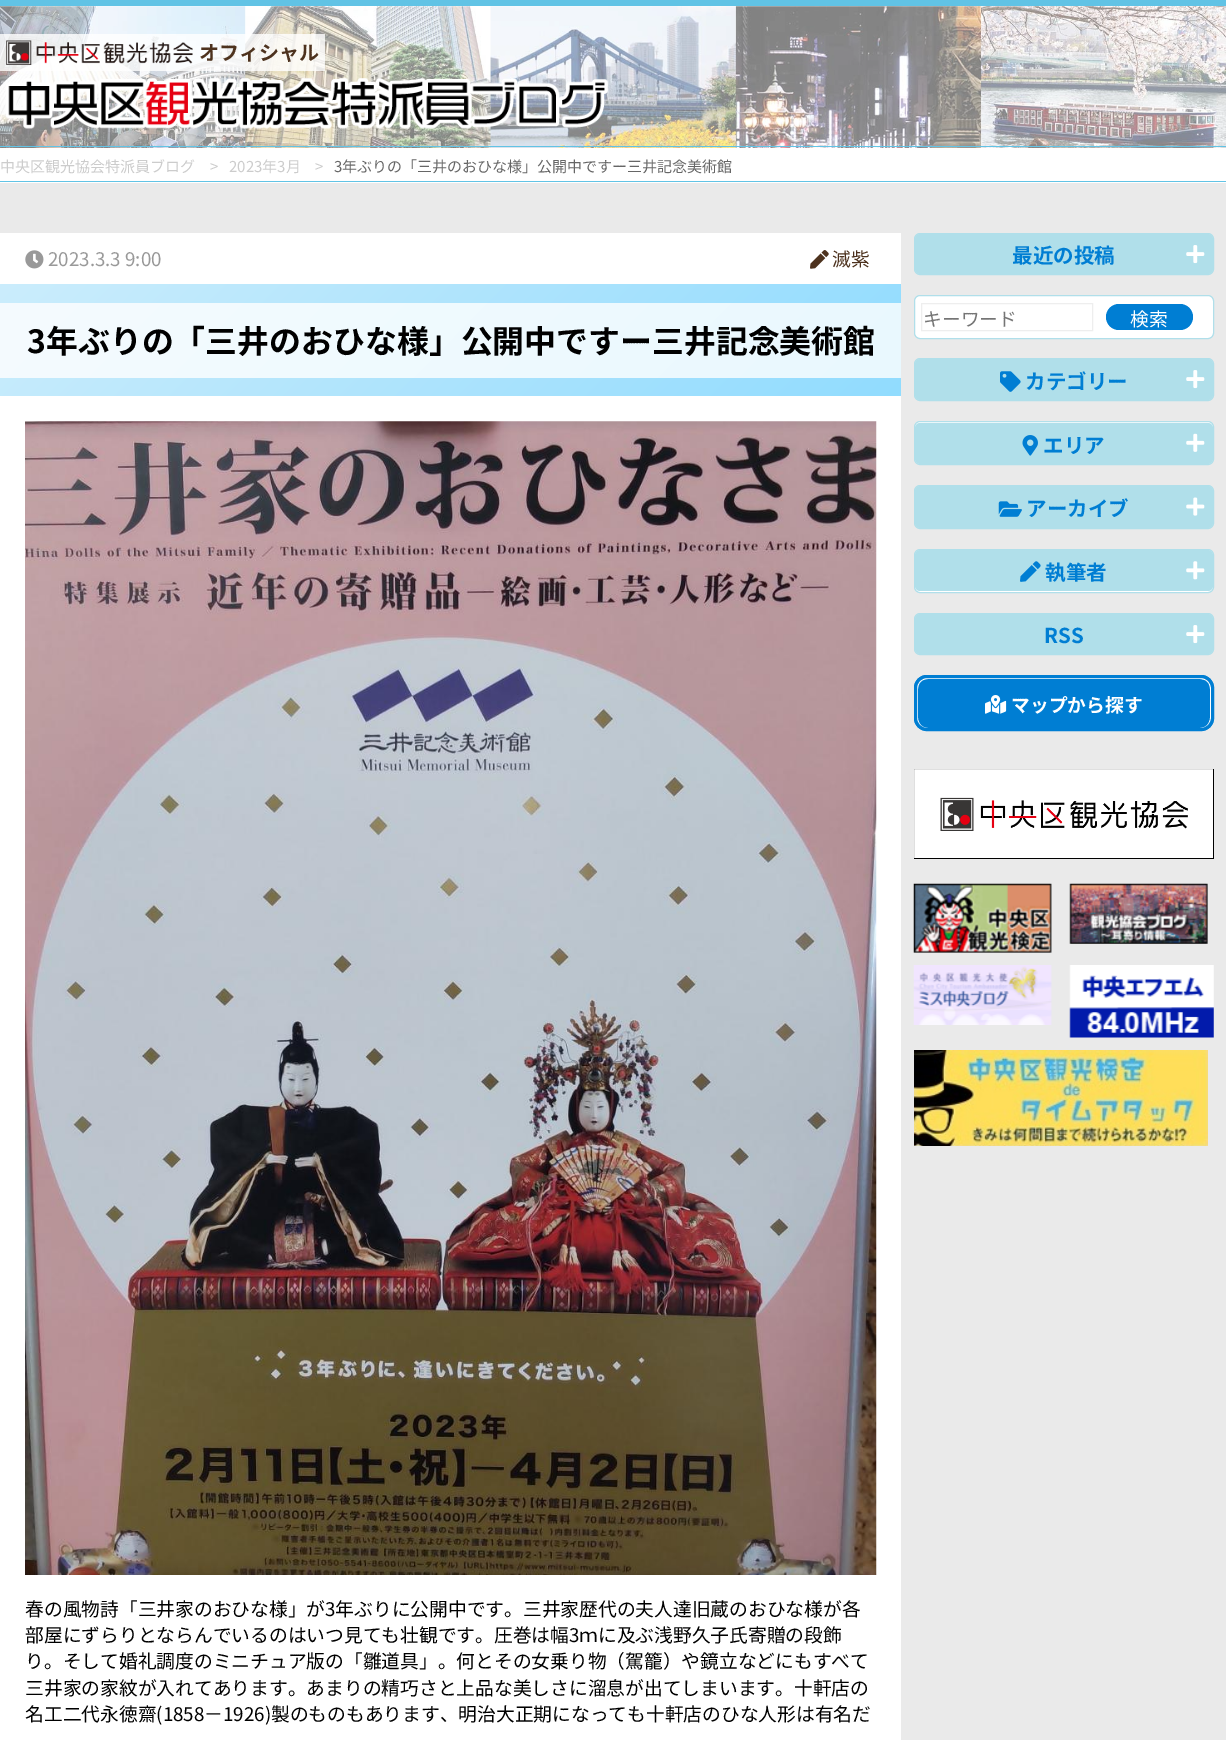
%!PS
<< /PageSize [1226 1740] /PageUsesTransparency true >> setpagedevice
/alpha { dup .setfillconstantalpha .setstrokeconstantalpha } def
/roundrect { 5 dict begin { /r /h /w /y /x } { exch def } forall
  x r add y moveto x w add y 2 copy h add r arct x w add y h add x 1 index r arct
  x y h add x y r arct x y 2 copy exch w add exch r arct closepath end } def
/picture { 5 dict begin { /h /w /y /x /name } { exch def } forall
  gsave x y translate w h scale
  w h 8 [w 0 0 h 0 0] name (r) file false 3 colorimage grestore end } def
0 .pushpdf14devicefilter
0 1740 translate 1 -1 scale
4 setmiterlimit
1 setgray
0 0 1226 1740 rectfill
(img1.rgb) 0 6 1226 142 picture
0.38 0.765 0.898 setrgbcolor
0 0 1226 6 rectfill
0 146 1226 1 rectfill
0.8 alpha
1 setgray
0 34 325 37 rectfill
1 alpha
(img2.rgb) 6 40 187 25 picture
/NotoSansJP-Bold [20 0 0 -20 0 0] selectfont
0.302 0.196 0.118 setrgbcolor
199 60 moveto (オフィシャル) show
(img3.rgb) 5 77 604 52 picture
0.38 0.765 0.898 setrgbcolor
0 181 1226 1 rectfill
/NotoSansJP-Regular [15 0 0 -15 0 0] selectfont
0.8 setgray
0 172 moveto (中央区観光協会特派員ブログ) show
210 172 moveto (>) show
229 172 moveto (2023年3月) show
315 172 moveto (>) show
0.4 setgray
334 172 moveto (3年ぶりの「三井のおひな様」公開中ですー三井記念美術館) show
0.918 setgray
0 183 1226 1557 rectfill
1 setgray
0 233 901 1507 rectfill
(img4.rgb) 25 250 19 19 picture
/NotoSansJP-Regular [18.75 0 0 -18.75 0 0] selectfont
0.6 setgray
48 266 moveto (2023.3.3 9:00) show
(img5.rgb) 810 250 19 19 picture
0.302 0.196 0.118 setrgbcolor
832 266 moveto (滅紫) show
gsave newpath 0 284 moveto 901 284 lineto 901 396 lineto 0 396 lineto closepath clip newpath
<< /ShadingType 2 /ColorSpace /DeviceRGB /Coords [197 87 704 593] /Extend [true true] /Function << /FunctionType 2 /Domain [0 1] /C0 [0.796 0.929 0.988] /C1 [0.569 0.863 1] /N 1 >> >> shfill grestore
gsave newpath 0 303 moveto 901 303 lineto 901 378 lineto 0 378 lineto closepath clip newpath
<< /ShadingType 2 /ColorSpace /DeviceRGB /Coords [197 87 704 593] /Extend [true true] /Function << /FunctionType 2 /Domain [0 1] /C0 [0.961 0.984 0.996] /C1 [0.914 0.973 1] /N 1 >> >> shfill grestore
/NotoSansJP-Bold [31.9 0 0 -31.9 0 0] selectfont
0 setgray
27 353 moveto (3年ぶりの「三井のおひな様」公開中ですー三井記念美術館) show
(img6.rgb) 25 421 852 1154 picture
/NotoSansJP-Regular [18.75 0 0 -18.75 0 0] selectfont
25 1616 moveto (春の風物詩「三井家のおひな様」が3年ぶりに公開中です。三井家歴代の夫人達旧蔵のおひな様が各) show
25 1642 moveto (部屋にずらりとならんでいるのはいつ見ても壮観です。圧巻は幅3ｍに及ぶ浅野久子氏寄贈の段飾) show
25 1668 moveto (り。そして婚礼調度のミニチュア版の「雛道具」。何とその女乗り物（駕籠）や鏡立などにもすべて) show
25 1695 moveto (三井家の家紋が入れてあります。あまりの精巧さと上品な美しさに溜息が出てしまいます。十軒店の) show
25 1721 moveto (名工二代永徳齋\(1858－1926\)製のものもあります、明治大正期になっても十軒店のひな人形は有名だ) show
0.69 0.875 0.918 setrgbcolor
914.5 233.5 299 41 5.5 roundrect stroke
915 234 298 40 5 roundrect fill
/NotoSansJP-Bold [20.5 0 0 -20.5 0 0] selectfont
0 0.494 0.827 setrgbcolor
1012 263 moveto (最近の投稿) show
(img7.rgb) 1186 245 19 19 picture
1 setgray
914.5 295.5 299 43 5.5 roundrect gsave fill grestore
0.69 0.875 0.918 setrgbcolor
stroke
0.933 setgray
921.5 303.5 171 27 rectstroke
/NotoSansJP-Regular [18.75 0 0 -18.75 0 0] selectfont
0.459 setgray
923 326 moveto (キーワード) show
0 0.494 0.827 setrgbcolor
1106 304 87 26 13 roundrect fill
1 setgray
1130 326 moveto (検索) show
0.69 0.875 0.918 setrgbcolor
914.5 358.5 299 42 5.5 roundrect stroke
915 359 298 41 5 roundrect fill
(img8.rgb) 1000 371 21 21 picture
/NotoSansJP-Bold [20.5 0 0 -20.5 0 0] selectfont
0 0.494 0.827 setrgbcolor
1025 389 moveto (カテゴリー) show
(img7.rgb) 1186 370 19 19 picture
1 setgray
914.5 421.5 299 43 5.5 roundrect gsave fill grestore
0.69 0.875 0.918 setrgbcolor
stroke
915 423 298 41 5 roundrect fill
(img9.rgb) 1022 435 16 21 picture
0 0.494 0.827 setrgbcolor
1043 453 moveto (エリア) show
(img10.rgb) 1186 433 19 19 picture
0.69 0.875 0.918 setrgbcolor
914.5 485.5 299 43 5.5 roundrect stroke
915 486 298 42 5 roundrect fill
(img11.rgb) 998 501 24 16 picture
0 0.494 0.827 setrgbcolor
1026 516 moveto (アーカイブ) show
(img12.rgb) 1186 497 19 19 picture
1 setgray
914.5 549.5 299 43 5.5 roundrect gsave fill grestore
0.69 0.875 0.918 setrgbcolor
stroke
915 550 298 41 5 roundrect fill
(img13.rgb) 1020 561 21 21 picture
0 0.494 0.827 setrgbcolor
1045 580 moveto (執筆者) show
(img14.rgb) 1186 561 19 19 picture
0.69 0.875 0.918 setrgbcolor
914.5 613.5 299 41 5.5 roundrect stroke
915 614 298 40 5 roundrect fill
0 0.494 0.827 setrgbcolor
1044 643 moveto (RSS) show
(img7.rgb) 1186 625 19 19 picture
914 675 300 56 13 roundrect fill
1 setgray
newpath 920 680 moveto 918 682 916 685 916 688 curveto 916 719 lineto 916 725 920 729 926 729 curveto 1201 729 lineto 1204 729 1207 728 1209 726 curveto 1207 727 1205 728 1202 728 curveto 928 728 lineto 922 728 918 723 918 718 curveto 918 686 lineto 918 684 919 682 920 680 curveto closepath fill
newpath 925 679 moveto 1200 679 lineto 1206 679 1210 683 1210 689 curveto 1210 720 lineto 1210 722 1210 724 1209 725 curveto 1210 724 1211 721 1211 719 curveto 1211 688 lineto 1211 682 1207 678 1201 678 curveto 926 678 lineto 924 678 921 679 920 680 curveto 921 679 923 679 925 679 curveto closepath fill
newpath 918 726 moveto 920 728 923 729 926 729 curveto 1201 729 lineto 1207 729 1211 725 1211 719 curveto 1211 688 lineto 1211 686 1210 684 1209 682 curveto 1210 686 lineto 1210 718 lineto 1210 723 1206 728 1200 728 curveto 925 728 lineto 922 728 920 727 918 726 curveto closepath fill
newpath 928 679 moveto 1202 679 lineto 1204 679 1206 679 1207 680 curveto 1206 679 1203 678 1201 678 curveto 926 678 lineto 920 678 916 682 916 688 curveto 916 719 lineto 916 723 918 726 922 728 curveto 919 726 918 723 918 720 curveto 918 689 lineto 918 683 922 679 928 679 curveto closepath fill
0 0.494 0.827 setrgbcolor
3 setlinewidth
915.5 676.5 297 53 11.5 roundrect stroke
(img15.rgb) 985 695 22 19 picture
/NotoSansJP-Bold [18.75 0 0 -18.75 0 0] selectfont
1 setgray
1011 712 moveto (マップから探す) show
(img16.rgb) 914 769 300 90 picture
(img17.rgb) 913 883 139 70 picture
(img18.rgb) 1069 883 139 61 picture
(img19.rgb) 913 965 139 60 picture
(img20.rgb) 1069 965 145 73 picture
(img21.rgb) 914 1050 294 96 picture
.poppdf14devicefilter showpage
